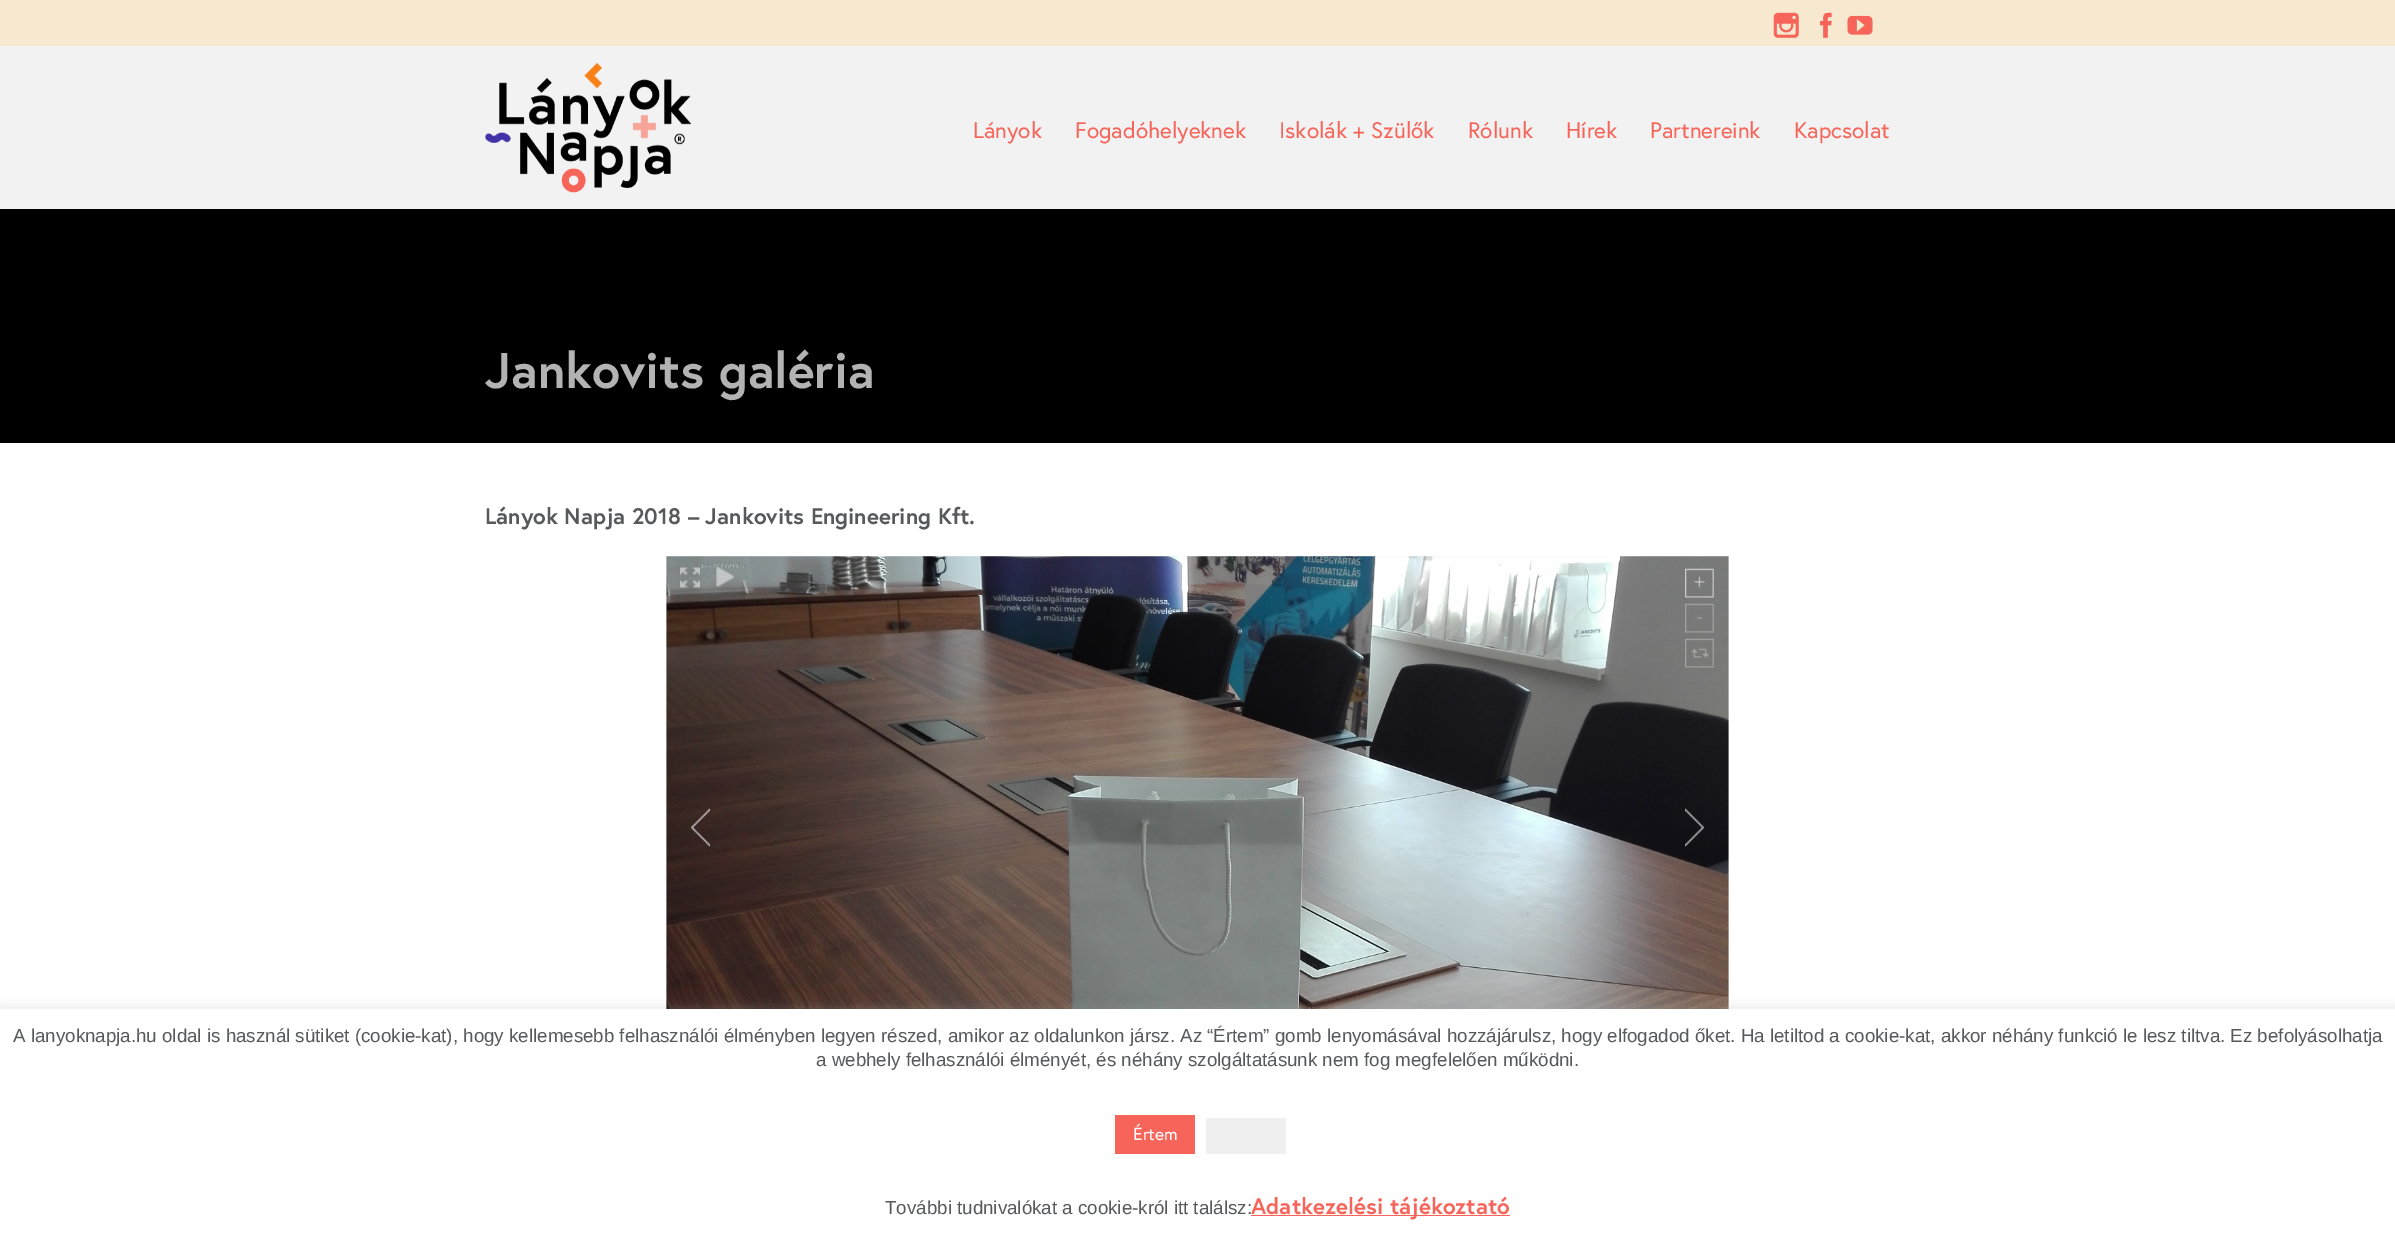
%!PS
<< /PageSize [2395 1235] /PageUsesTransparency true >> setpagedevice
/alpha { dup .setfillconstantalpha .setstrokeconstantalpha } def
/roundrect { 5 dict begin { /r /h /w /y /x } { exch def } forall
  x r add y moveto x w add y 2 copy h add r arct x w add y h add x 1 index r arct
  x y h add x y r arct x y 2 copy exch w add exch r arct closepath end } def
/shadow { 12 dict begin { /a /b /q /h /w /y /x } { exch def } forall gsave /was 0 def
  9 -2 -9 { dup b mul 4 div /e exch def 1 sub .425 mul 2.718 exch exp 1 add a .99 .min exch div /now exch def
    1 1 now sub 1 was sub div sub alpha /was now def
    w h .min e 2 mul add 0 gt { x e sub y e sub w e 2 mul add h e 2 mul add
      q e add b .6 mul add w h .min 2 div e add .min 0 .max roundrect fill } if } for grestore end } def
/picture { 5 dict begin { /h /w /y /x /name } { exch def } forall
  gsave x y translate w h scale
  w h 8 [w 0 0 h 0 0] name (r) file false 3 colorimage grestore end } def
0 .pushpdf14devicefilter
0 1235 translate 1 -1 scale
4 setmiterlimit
0 setgray
0 0 2395 1235 rectfill
0.949 setgray
0 46 2395 163 rectfill
0.965 0.914 0.816 setrgbcolor
0 0 2395 46 rectfill
(img1.rgb) 1773 12 26 26 picture
(img2.rgb) 1820 12 12 26 picture
(img3.rgb) 1847 15 26 20 picture
(img4.rgb) 485 62 207 131 picture
/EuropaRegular-Regular [22.5 0 0 -22.5 0 0] selectfont
0.965 0.392 0.353 setrgbcolor
973 138 moveto (Lányok) show
1075 138 moveto (Fogadóhelyeknek) show
1279 138 moveto (Iskolák + Szülők) show
1468 138 moveto (Rólunk) show
1566 138 moveto (Hírek) show
1650 138 moveto (Partnereink) show
1794 138 moveto (Kapcsolat) show
/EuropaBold-Bold [50 0 0 -50 0 0] selectfont
0.702 setgray
485 388 moveto (Jankovits galéria) show
1 setgray
0 443 2395 566 rectfill
/EuropaBold-Bold [22.5 0 0 -22.5 0 0] selectfont
0.345 0.349 0.357 setrgbcolor
485 524 moveto (Lányok Napja 2018 – Jankovits Engineering Kft.) show
0.937 setgray
666 556 1063 453 rectfill
(img5.rgb) 666 556 1063 453 picture
(img6.rgb) 680 567 20 21 picture
(img7.rgb) 716 567 18 20 picture
(img8.rgb) 1685 568 29 30 picture
(img9.rgb) 1685 603 29 30 picture
(img10.rgb) 1685 638 29 30 picture
(img11.rgb) 691 808 19 39 picture
(img12.rgb) 1685 808 19 39 picture
0.675 0.671 0.671 setrgbcolor
0 1008 2395 226 0 6 0.3 shadow
1 setgray
0 1009 2395 226 rectfill
/LiberationSans-Regular [18.75 0 0 -18.75 0 0] selectfont
0.345 0.349 0.357 setrgbcolor
13 1042 moveto (A lanyoknapja.hu oldal is használ sütiket \(cookie-kat\), hogy kellemesebb felhasználói élményben legyen részed, amikor az oldalunkon jársz. Az “Értem” gomb lenyomásával hozzájárulsz, hogy elfogadod őket. Ha letiltod a cookie-kat, akkor néhány funkció le lesz tiltva. Ez befolyásolhatja) show
816 1066 moveto (a webhely felhasználói élményét, és néhány szolgáltatásunk nem fog megfelelően működni.) show
0.965 0.392 0.353 setrgbcolor
1115 1115 80 39 rectfill
/EuropaRegular-Regular [17.5 0 0 -17.5 0 0] selectfont
1 setgray
1133 1140 moveto (Értem) show
0.937 setgray
1206 1118 80 36 rectfill
/LiberationSans-Regular [18.75 0 0 -18.75 0 0] selectfont
0.345 0.349 0.357 setrgbcolor
885 1214 moveto (További tudnivalókat a cookie-król itt találsz:) show
0.965 0.392 0.353 setrgbcolor
1251 1215 259 1 rectfill
/EuropaBold-Bold [22.5 0 0 -22.5 0 0] selectfont
1251 1214 moveto (Adatkezelési tájékoztató) show
.poppdf14devicefilter showpage
